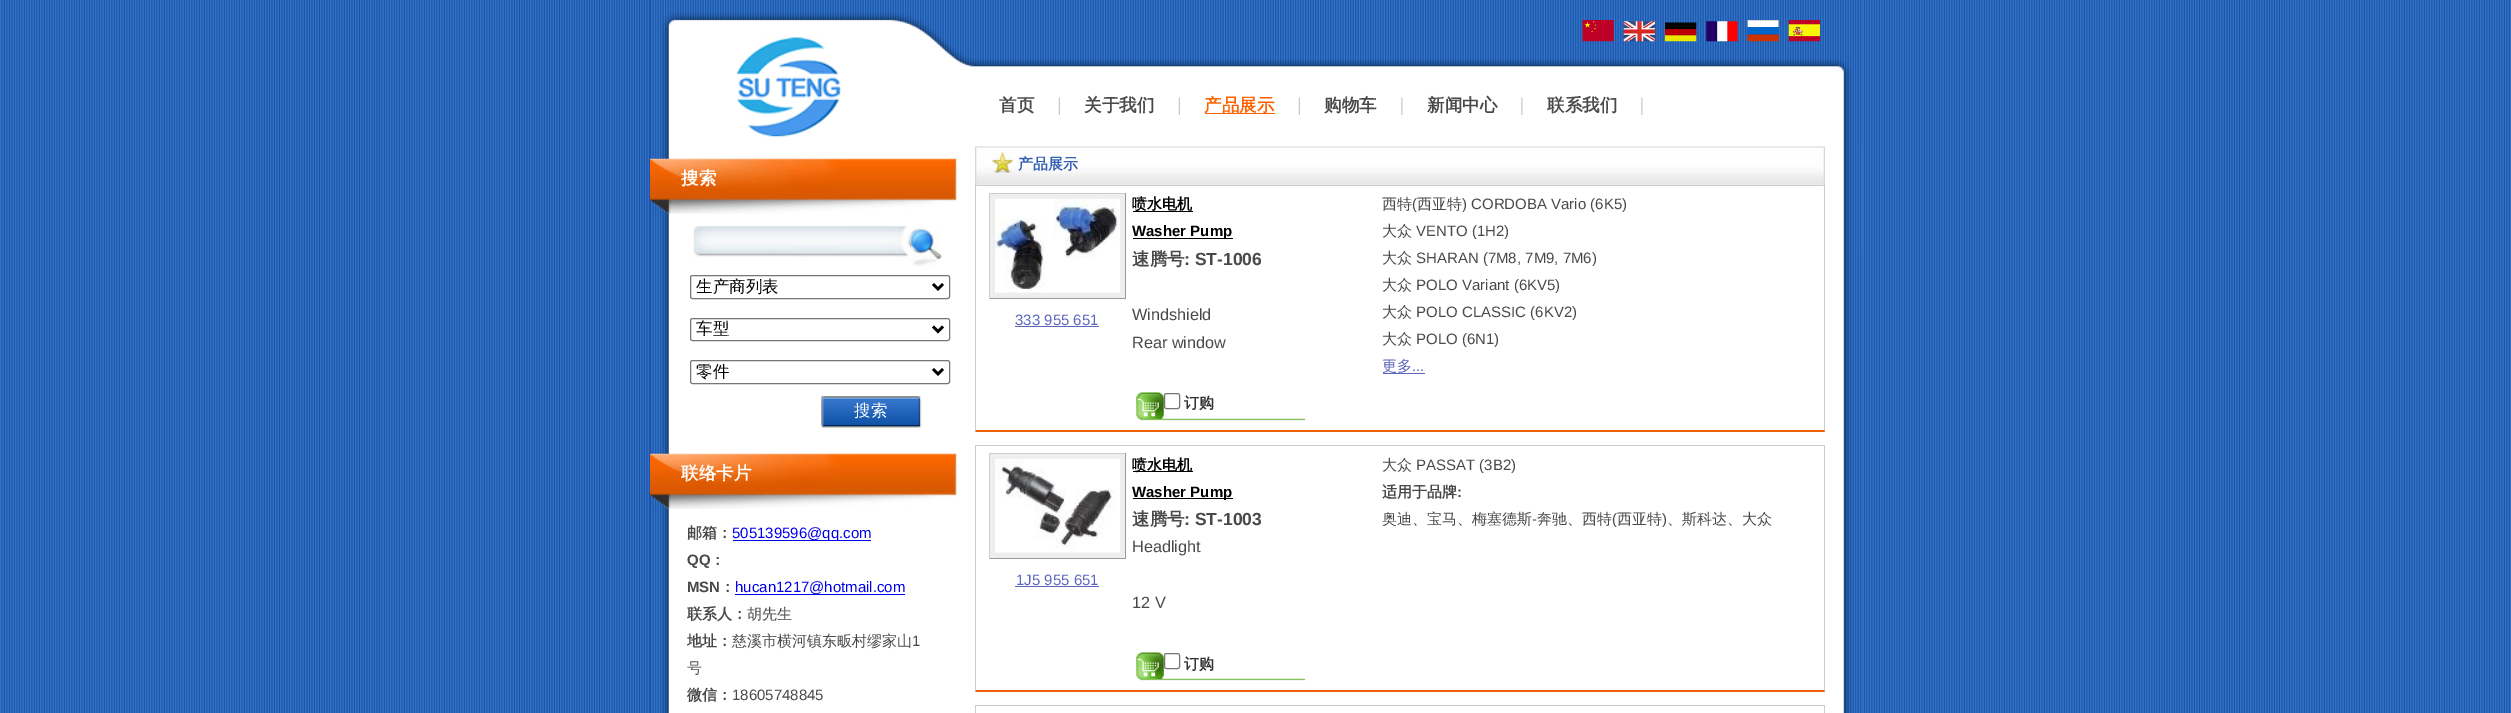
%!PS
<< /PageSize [2511 713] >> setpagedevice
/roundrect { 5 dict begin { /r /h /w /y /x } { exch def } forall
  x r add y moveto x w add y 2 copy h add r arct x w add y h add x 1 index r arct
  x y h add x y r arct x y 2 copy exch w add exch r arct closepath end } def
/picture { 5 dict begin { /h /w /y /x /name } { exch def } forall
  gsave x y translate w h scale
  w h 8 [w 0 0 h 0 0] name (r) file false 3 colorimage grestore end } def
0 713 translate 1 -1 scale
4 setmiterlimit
1 setgray
0 0 2511 713 rectfill
(img1.rgb) 0 0 2511 713 picture
(img2.rgb) 650 0 1213 250 picture
(img3.rgb) 1582 20 32 22 picture
(img4.rgb) 1623 21 32 21 picture
(img5.rgb) 1665 22 32 20 picture
(img6.rgb) 1706 21 32 21 picture
(img7.rgb) 1747 20 32 22 picture
(img8.rgb) 1788 20 32 22 picture
(img9.rgb) 736 37 105 100 picture
/WenQuanYiZenHei-Bold [17.5 0 0 -17.5 0 0] selectfont
0.286 setgray
999 111 moveto (首页) show
(img10.rgb) 1058 97 2 18 picture
1084 111 moveto (关于我们) show
(img10.rgb) 1178 97 2 18 picture
1 0.388 0 setrgbcolor
1205 113 70 1 rectfill
1204 111 moveto (产品展示) show
(img10.rgb) 1298 97 2 18 picture
0.286 setgray
1324 111 moveto (购物车) show
(img11.rgb) 1401 97 2 18 picture
1427 111 moveto (新闻中心) show
(img11.rgb) 1521 97 2 18 picture
1547 111 moveto (联系我们) show
(img11.rgb) 1641 97 2 18 picture
(img12.rgb) 650 147 1213 566 picture
(img13.rgb) 650 158 307 56 picture
1 setgray
681 184 moveto (搜索) show
(img14.rgb) 693 226 249 40 picture
0.463 setgray
690.5 275.5 259 23 2 roundrect stroke
0 setgray
2.5 setlinewidth
newpath 933 284 moveto 938 289 lineto 943 284 lineto stroke
/WenQuanYiZenHei-Medium [16.5 0 0 -16.5 0 0] selectfont
696 292 moveto (生产商列表) show
0.463 setgray
1 setlinewidth
690.5 318.5 259 22 2 roundrect stroke
0 setgray
2.5 setlinewidth
newpath 933 326.5 moveto 938 331.5 lineto 943 326.5 lineto stroke
696 334 moveto (车型) show
0.463 setgray
1 setlinewidth
690.5 360.5 259 23 2 roundrect stroke
0 setgray
2.5 setlinewidth
newpath 933 369 moveto 938 374 lineto 943 369 lineto stroke
696 377 moveto (零件) show
(img15.rgb) 821 396 101 32 picture
1 setgray
854 416 moveto (搜索) show
(img13.rgb) 650 453 307 56 picture
/WenQuanYiZenHei-Bold [17.5 0 0 -17.5 0 0] selectfont
681 479 moveto (联络卡片) show
/WenQuanYiZenHei-Bold [15 0 0 -15 0 0] selectfont
0.286 setgray
687 538 moveto (邮箱：) show
0 0 0.933 setrgbcolor
733 540 138 1 rectfill
/LiberationSans-Regular [15 0 0 -15 0 0] selectfont
732 538 moveto (505139596@qq.com) show
/LiberationSans-Bold [15 0 0 -15 0 0] selectfont
0.286 setgray
687 565 moveto (QQ) show
/WenQuanYiZenHei-Bold [15 0 0 -15 0 0] selectfont
710 565 moveto (：) show
/LiberationSans-Bold [15 0 0 -15 0 0] selectfont
687 592 moveto (MSN) show
/WenQuanYiZenHei-Bold [15 0 0 -15 0 0] selectfont
720 592 moveto (：) show
0 0 0.933 setrgbcolor
735 594 170 1 rectfill
/LiberationSans-Regular [15 0 0 -15 0 0] selectfont
735 592 moveto (hucan1217@hotmail.com) show
/WenQuanYiZenHei-Bold [15 0 0 -15 0 0] selectfont
0.286 setgray
687 619 moveto (联系人：) show
/WenQuanYiZenHei-Medium [15 0 0 -15 0 0] selectfont
747 619 moveto (胡先生) show
/WenQuanYiZenHei-Bold [15 0 0 -15 0 0] selectfont
687 646 moveto (地址：) show
/WenQuanYiZenHei-Medium [15 0 0 -15 0 0] selectfont
732 646 moveto (慈溪市横河镇东畈村缪家山) show
/LiberationSans-Regular [15 0 0 -15 0 0] selectfont
912 646 moveto (1) show
/WenQuanYiZenHei-Medium [15 0 0 -15 0 0] selectfont
687 673 moveto (号) show
/WenQuanYiZenHei-Bold [15 0 0 -15 0 0] selectfont
687 700 moveto (微信：) show
/LiberationSans-Regular [15 0 0 -15 0 0] selectfont
732 700 moveto (18605748845) show
(img16.rgb) 975 146 850 39 picture
/WenQuanYiZenHei-Bold [15 0 0 -15 0 0] selectfont
0.2 0.376 0.702 setrgbcolor
1018 169 moveto (产品展示) show
0.8 setgray
975 185 850 1 rectfill
newpath 1825 185 moveto 1825 432 lineto 1824 430 lineto 1824 186 lineto closepath fill
0.925 0.38 0.008 setrgbcolor
newpath 1825 432 moveto 975 432 lineto 976 430 lineto 1824 430 lineto closepath fill
0.8 setgray
newpath 975 432 moveto 975 185 lineto 976 186 lineto 976 430 lineto closepath fill
989 193 137 1 rectfill
0.6 setgray
1125 193 1 106 rectfill
989 298 137 1 rectfill
0.8 setgray
989 193 1 106 rectfill
0.933 setgray
990 194 135 104 rectfill
(img17.rgb) 995 198 125 95 picture
/LiberationSans-Regular [15 0 0 -15 0 0] selectfont
0.357 0.4 0.737 setrgbcolor
1015 325 moveto (333 955 651) show
1015 326 84 1 rectfill
0 setgray
1133 211 60 1 rectfill
/WenQuanYiZenHei-Bold [15 0 0 -15 0 0] selectfont
1132 209 moveto (喷水电机) show
1133 238 100 1 rectfill
/LiberationSans-Bold [15 0 0 -15 0 0] selectfont
1132 236 moveto (Washer Pump) show
/WenQuanYiZenHei-Bold [17.5 0 0 -17.5 0 0] selectfont
0.286 setgray
1132 265 moveto (速腾号) show
/LiberationSans-Bold [17.5 0 0 -17.5 0 0] selectfont
1184 265 moveto (: ST-1006) show
/LiberationSans-Regular [16.25 0 0 -16.25 0 0] selectfont
1132 320 moveto (Windshield) show
1132 348 moveto (Rear window) show
(img18.rgb) 1136 392 170 29 picture
0.463 setgray
1 setlinewidth
1164.5 393.5 15 15 2 roundrect stroke
/WenQuanYiZenHei-Bold [15 0 0 -15 0 0] selectfont
0.2 setgray
1184 408 moveto (订购) show
/WenQuanYiZenHei-Medium [15 0 0 -15 0 0] selectfont
0.286 setgray
1382 209 moveto (西特) show
/LiberationSans-Regular [15 0 0 -15 0 0] selectfont
1412 209 moveto (\() show
/WenQuanYiZenHei-Medium [15 0 0 -15 0 0] selectfont
1417 209 moveto (西亚特) show
/LiberationSans-Regular [15 0 0 -15 0 0] selectfont
1462 209 moveto (\) CORDOBA Vario \(6K5\)) show
/WenQuanYiZenHei-Medium [15 0 0 -15 0 0] selectfont
1382 236 moveto (大众) show
/LiberationSans-Regular [15 0 0 -15 0 0] selectfont
1416 236 moveto (VENTO \(1H2\)) show
/WenQuanYiZenHei-Medium [15 0 0 -15 0 0] selectfont
1382 263 moveto (大众) show
/LiberationSans-Regular [15 0 0 -15 0 0] selectfont
1416 263 moveto (SHARAN \(7M8, 7M9, 7M6\)) show
/WenQuanYiZenHei-Medium [15 0 0 -15 0 0] selectfont
1382 290 moveto (大众) show
/LiberationSans-Regular [15 0 0 -15 0 0] selectfont
1416 290 moveto (POLO Variant \(6KV5\)) show
/WenQuanYiZenHei-Medium [15 0 0 -15 0 0] selectfont
1382 317 moveto (大众) show
/LiberationSans-Regular [15 0 0 -15 0 0] selectfont
1416 317 moveto (POLO CLASSIC \(6KV2\)) show
/WenQuanYiZenHei-Medium [15 0 0 -15 0 0] selectfont
1382 344 moveto (大众) show
/LiberationSans-Regular [15 0 0 -15 0 0] selectfont
1416 344 moveto (POLO \(6N1\)) show
/WenQuanYiZenHei-Medium [15 0 0 -15 0 0] selectfont
0.357 0.4 0.737 setrgbcolor
1382 371 moveto (更多) show
/LiberationSans-Regular [15 0 0 -15 0 0] selectfont
1412 371 moveto (...) show
1383 373 42 1 rectfill
0.8 setgray
975 445 850 1 rectfill
newpath 1825 445 moveto 1825 692 lineto 1824 690 lineto 1824 446 lineto closepath fill
0.925 0.38 0.008 setrgbcolor
newpath 1825 692 moveto 975 692 lineto 976 690 lineto 1824 690 lineto closepath fill
0.8 setgray
newpath 975 692 moveto 975 445 lineto 976 446 lineto 976 690 lineto closepath fill
0 setgray
1133 471 60 1 rectfill
/WenQuanYiZenHei-Bold [15 0 0 -15 0 0] selectfont
1132 470 moveto (喷水电机) show
1133 498 100 1 rectfill
/LiberationSans-Bold [15 0 0 -15 0 0] selectfont
1132 497 moveto (Washer Pump) show
/WenQuanYiZenHei-Bold [17.5 0 0 -17.5 0 0] selectfont
0.286 setgray
1132 525 moveto (速腾号) show
/LiberationSans-Bold [17.5 0 0 -17.5 0 0] selectfont
1184 525 moveto (: ST-1003) show
/LiberationSans-Regular [16.25 0 0 -16.25 0 0] selectfont
1132 552 moveto (Headlight) show
1132 608 moveto (12 V) show
(img18.rgb) 1136 652 170 29 picture
0.463 setgray
1164.5 653.5 15 15 2 roundrect stroke
/WenQuanYiZenHei-Bold [15 0 0 -15 0 0] selectfont
0.2 setgray
1184 669 moveto (订购) show
/WenQuanYiZenHei-Medium [15 0 0 -15 0 0] selectfont
0.286 setgray
1382 470 moveto (大众) show
/LiberationSans-Regular [15 0 0 -15 0 0] selectfont
1416 470 moveto (PASSAT \(3B2\)) show
/WenQuanYiZenHei-Bold [15 0 0 -15 0 0] selectfont
1382 497 moveto (适用于品牌) show
/LiberationSans-Bold [15 0 0 -15 0 0] selectfont
1457 497 moveto (:) show
/WenQuanYiZenHei-Medium [15 0 0 -15 0 0] selectfont
1382 524 moveto (奥迪、宝马、梅塞德斯) show
/LiberationSans-Regular [15 0 0 -15 0 0] selectfont
1532 524 moveto (-) show
/WenQuanYiZenHei-Medium [15 0 0 -15 0 0] selectfont
1537 524 moveto (奔驰、西特) show
/LiberationSans-Regular [15 0 0 -15 0 0] selectfont
1612 524 moveto (\() show
/WenQuanYiZenHei-Medium [15 0 0 -15 0 0] selectfont
1617 524 moveto (西亚特) show
/LiberationSans-Regular [15 0 0 -15 0 0] selectfont
1662 524 moveto (\)) show
/WenQuanYiZenHei-Medium [15 0 0 -15 0 0] selectfont
1667 524 moveto (、斯科达、大众) show
0.8 setgray
989 453 137 1 rectfill
0.6 setgray
1125 453 1 106 rectfill
989 558 137 1 rectfill
0.8 setgray
989 453 1 106 rectfill
0.933 setgray
990 454 135 104 rectfill
(img19.rgb) 995 458 125 95 picture
/LiberationSans-Regular [15 0 0 -15 0 0] selectfont
0.357 0.4 0.737 setrgbcolor
1016 585 moveto (1J5 955 651) show
1015 586 84 1 rectfill
0.8 setgray
975 705 850 1 rectfill
newpath 1825 705 moveto 1825 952 lineto 1824 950 lineto 1824 706 lineto closepath fill
newpath 975 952 moveto 975 705 lineto 976 706 lineto 976 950 lineto closepath fill
showpage
